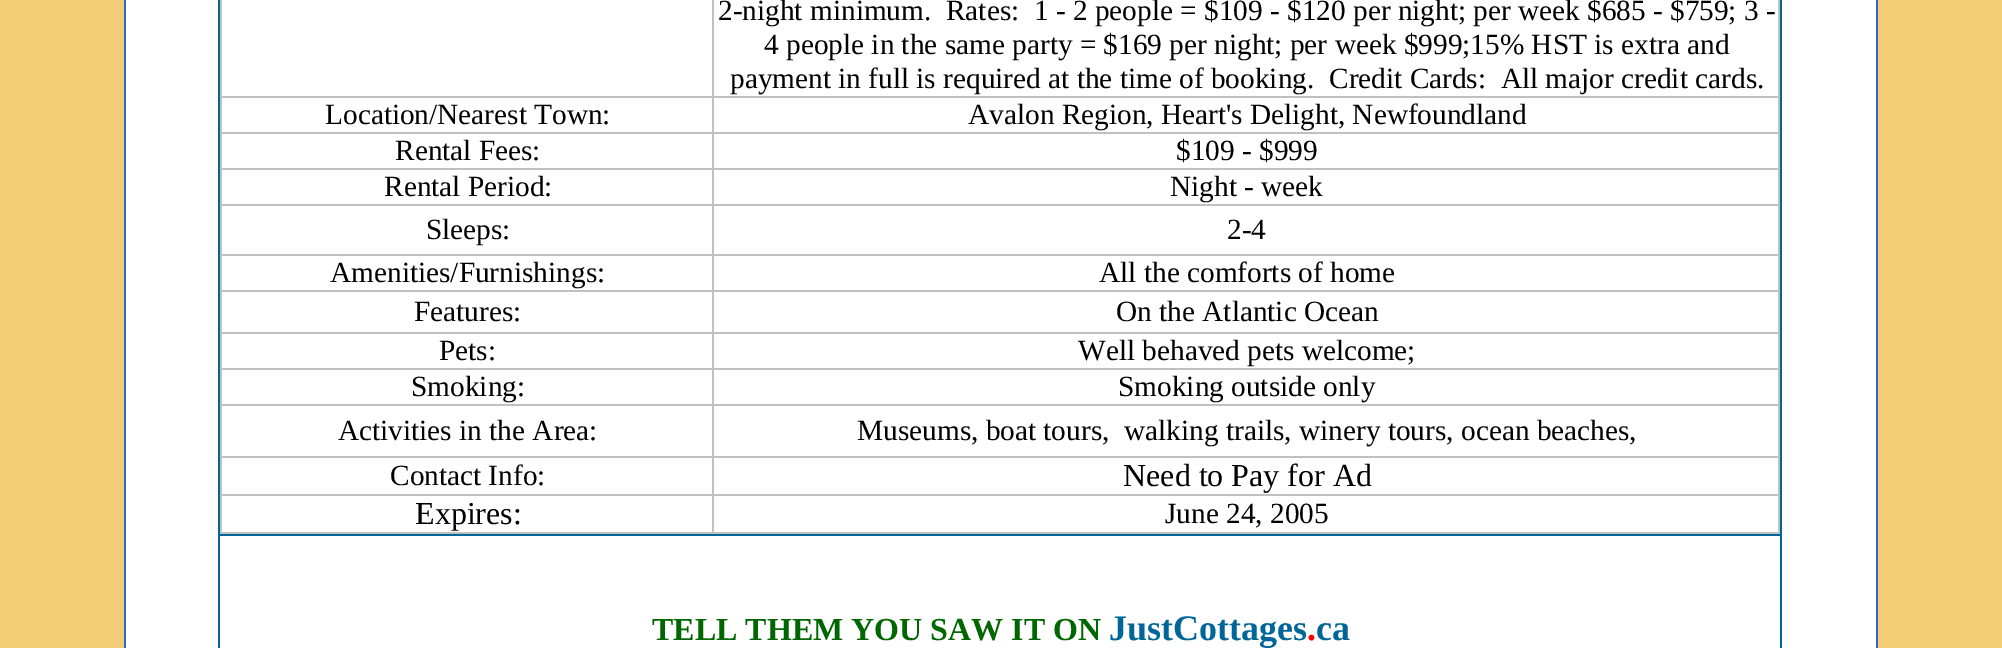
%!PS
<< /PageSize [2002 648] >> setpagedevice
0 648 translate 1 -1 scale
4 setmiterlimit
0.961 0.8 0.463 setrgbcolor
0 0 2002 648 rectfill
1 setgray
126 0 1750 648 rectfill
0.2 0.4 0.8 setrgbcolor
1876 0 2 648 rectfill
124 0 2 648 rectfill
0 0.4 0.6 setrgbcolor
1780 0 2 648 rectfill
218 0 2 648 rectfill
0.753 setgray
1778 0 2 534 rectfill
220 532 1560 2 rectfill
220 0 2 534 rectfill
712 96 1068 2 rectfill
712 132 1068 2 rectfill
712 168 1068 2 rectfill
712 204 1068 2 rectfill
712 254 1068 2 rectfill
712 290 1068 2 rectfill
712 332 1068 2 rectfill
712 368 1068 2 rectfill
712 404 1068 2 rectfill
712 456 1068 2 rectfill
712 494 1068 2 rectfill
712 494 2 40 rectfill
220 494 494 2 rectfill
712 456 2 40 rectfill
220 456 494 2 rectfill
712 404 2 54 rectfill
220 404 494 2 rectfill
712 368 2 38 rectfill
220 368 494 2 rectfill
712 332 2 38 rectfill
220 332 494 2 rectfill
712 290 2 44 rectfill
220 290 494 2 rectfill
712 254 2 38 rectfill
220 254 494 2 rectfill
712 204 2 52 rectfill
220 204 494 2 rectfill
712 168 2 38 rectfill
220 168 494 2 rectfill
712 132 2 38 rectfill
220 132 494 2 rectfill
712 96 2 38 rectfill
220 96 494 2 rectfill
712 0 2 98 rectfill
/LiberationSerif-Regular [29.3 0 0 -29.3 0 0] selectfont
0 setgray
718 20 moveto (2-night minimum.  Rates:  1 - 2 people = $109 - $120 per night;) show
1473 20 moveto (per week $685 - $759; 3 -) show
764 54 moveto (4 people in the same party = $169 per night; per week $999;15% HST is extra and) show
730 88 moveto (payment in full is required at the time of booking.) show
1329 88 moveto (Credit Cards:  All major credit cards.) show
325 124 moveto (Location/Nearest Town:) show
968 124 moveto (Avalon Region, Heart's Delight, Newfoundland) show
395 160 moveto (Rental Fees:) show
1176 160 moveto ($109 - $999) show
384 196 moveto (Rental Period:) show
1170 196 moveto (Night - week) show
426 239 moveto (Sleeps:) show
1227 239 moveto (2-4) show
330 282 moveto (Amenities/Furnishings:) show
1099 282 moveto (All the comforts of home) show
414 321 moveto (Features:) show
1116 321 moveto (On the Atlantic Ocean) show
439 360 moveto (Pets:) show
1078 360 moveto (Well behaved pets welcome;) show
411 396 moveto (Smoking:) show
1118 396 moveto (Smoking outside only) show
338 440 moveto (Activities in the Area:) show
857 440 moveto (Museums, boat tours,  walking trails, winery tours,) show
1461 440 moveto (ocean beaches,) show
390 485 moveto (Contact Info:) show
/LiberationSerif-Regular [32 0 0 -32 0 0] selectfont
1123 486 moveto (Need to Pay for Ad) show
415 524 moveto (Expires:) show
/LiberationSerif-Regular [29.3 0 0 -29.3 0 0] selectfont
1165 523 moveto (June 24, 2005) show
0 0.4 0.6 setrgbcolor
218 534 1564 2 rectfill
/LiberationSerif-Bold [32 0 0 -32 0 0] selectfont
0 0.4 0 setrgbcolor
652 640 moveto (TELL THEM YOU SAW IT ON) show
/LiberationSerif-Bold [36 0 0 -36 0 0] selectfont
0 0.4 0.6 setrgbcolor
1109 640 moveto (JustCottages ca) show
1 0 0 setrgbcolor
1307 640 moveto (.) show
showpage
